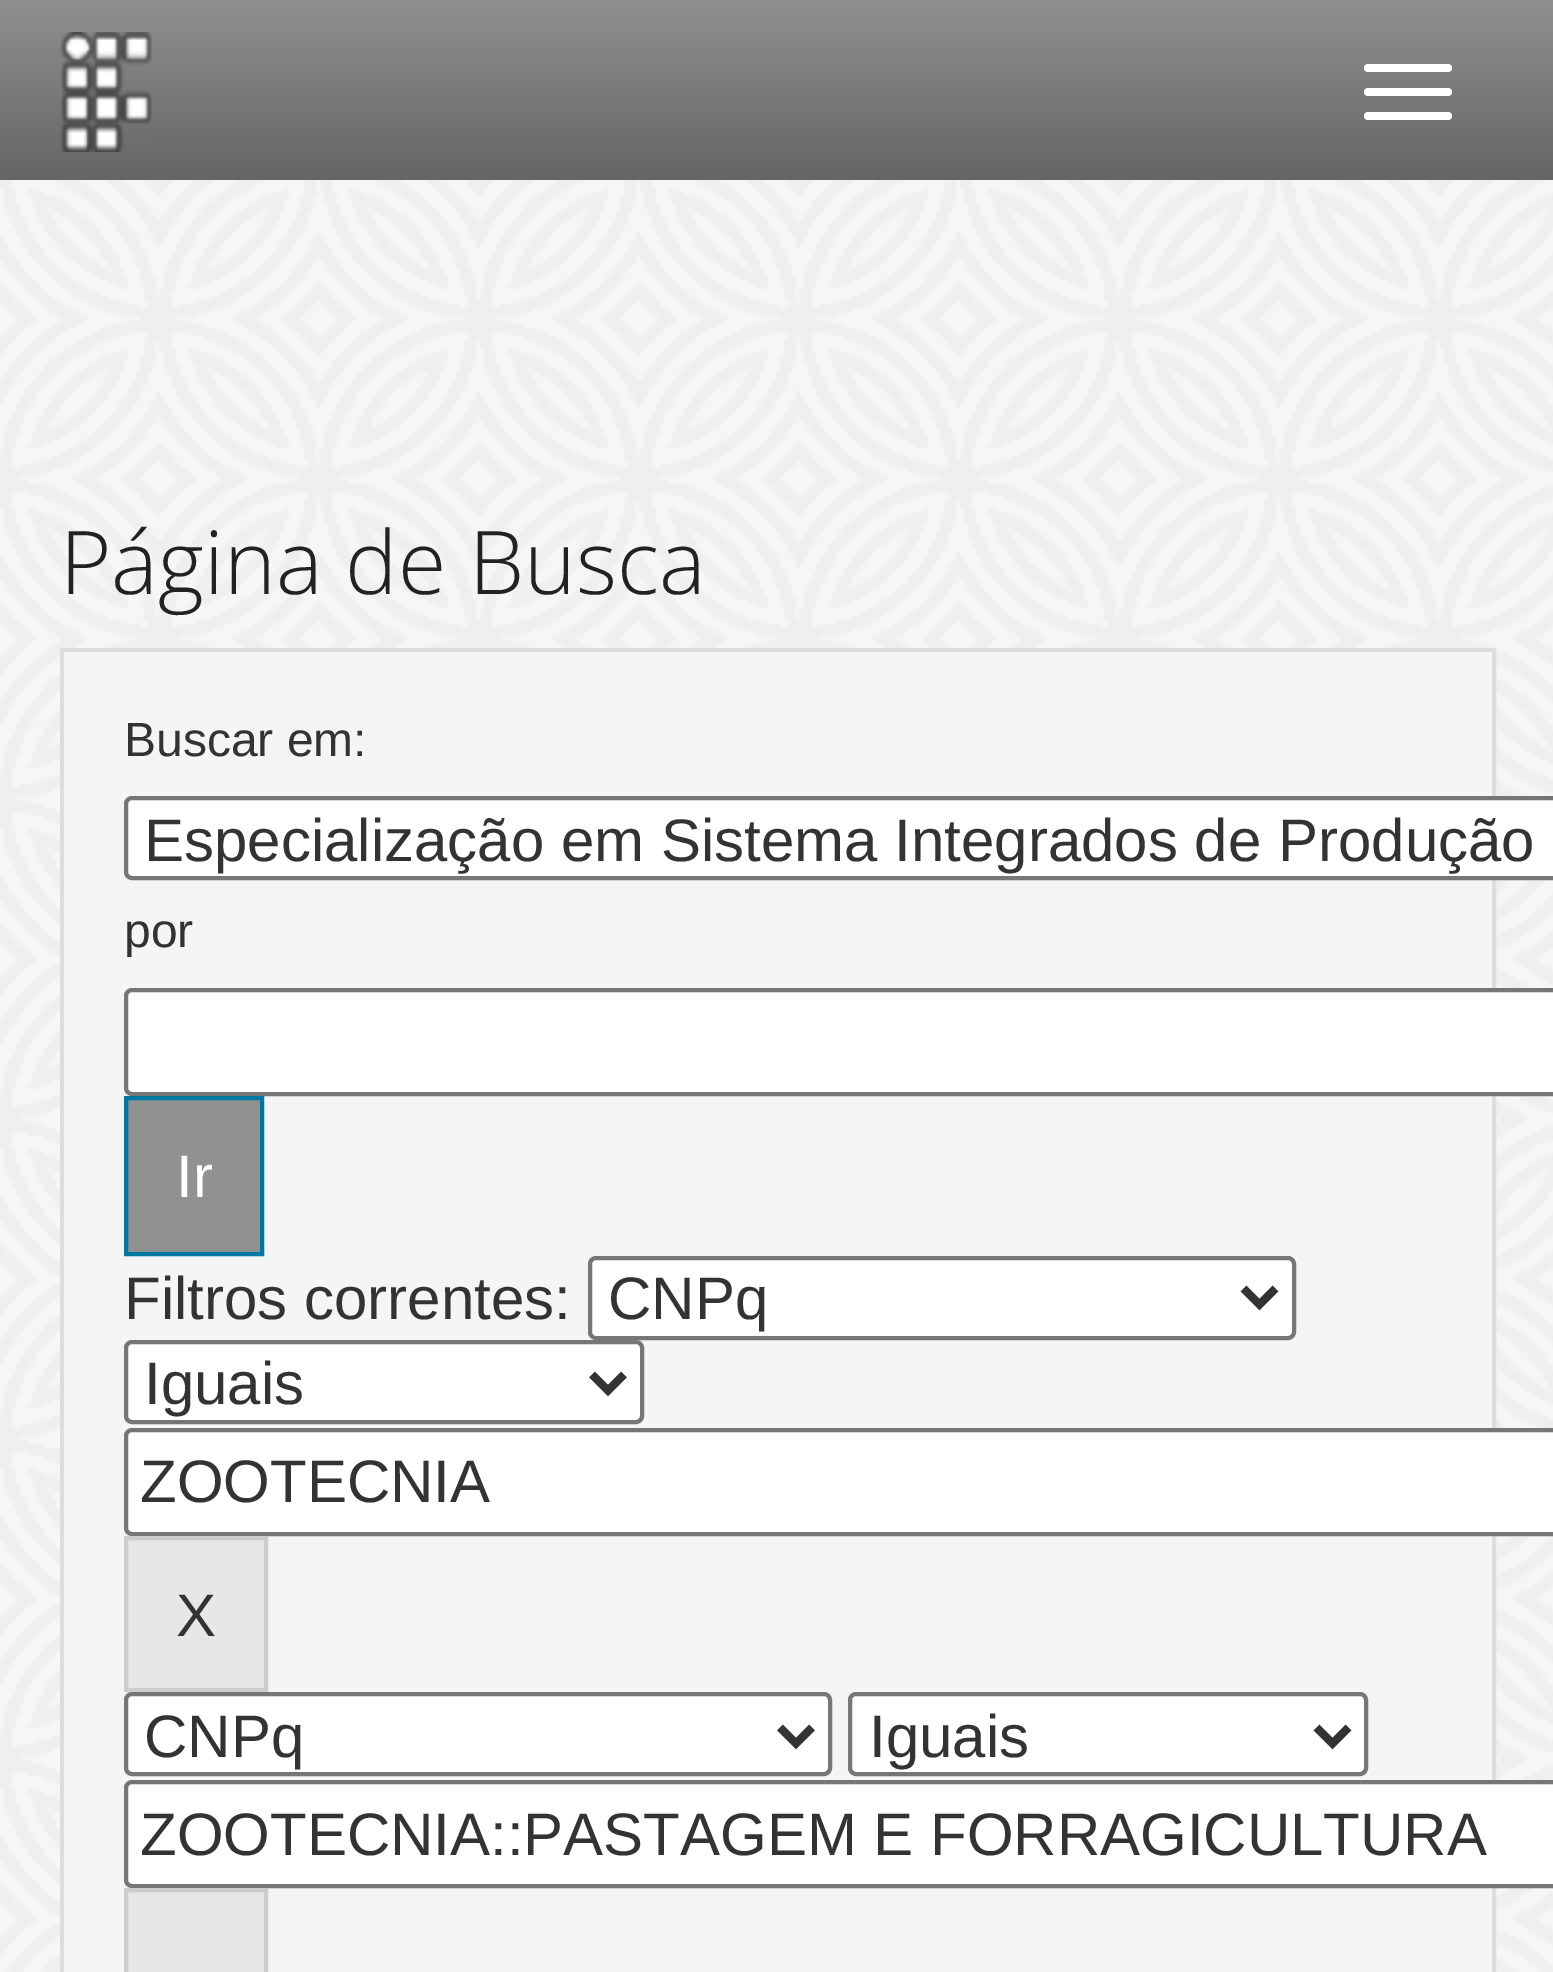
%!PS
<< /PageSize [1553 1972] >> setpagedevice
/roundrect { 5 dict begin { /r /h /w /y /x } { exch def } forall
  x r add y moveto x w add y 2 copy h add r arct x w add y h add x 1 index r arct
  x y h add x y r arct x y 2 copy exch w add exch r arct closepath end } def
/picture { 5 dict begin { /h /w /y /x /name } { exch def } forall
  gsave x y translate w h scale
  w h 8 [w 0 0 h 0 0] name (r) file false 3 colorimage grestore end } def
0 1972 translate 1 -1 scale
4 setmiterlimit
1 setgray
0 0 1553 1972 rectfill
(img1.rgb) 0 180 1553 1792 picture
gsave newpath 0 0 moveto 1553 0 lineto 1553 180 lineto 0 180 lineto closepath clip newpath
<< /ShadingType 2 /ColorSpace /DeviceRGB /Coords [778 0 778 180] /Extend [true true] /Function << /FunctionType 2 /Domain [0 1] /C0 [0.565 0.565 0.565] /C1 [0.396 0.396 0.396] /N 1 >> >> shfill grestore
(img2.rgb) 60 32 92 120 picture
1364 64 88 8 4 roundrect fill
1364 88 88 8 4 roundrect fill
1364 112 88 8 4 roundrect fill
/OpenSans-Light [88 0 0 -88 0 0] selectfont
0.133 setgray
60 594 moveto (Página de Busca) show
0.867 setgray
4 setlinewidth
62 650 1432 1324 rectstroke
0.961 setgray
64 652 1428 1320 rectfill
/LiberationSans-Regular [48 0 0 -48 0 0] selectfont
0.2 setgray
124 756 moveto (Buscar em:) show
1 setgray
126 798 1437 80 6 roundrect gsave fill grestore
0.463 setgray
stroke
/LiberationSans-Regular [60 0 0 -60 0 0] selectfont
0.2 setgray
144 861 moveto (Especialização em Sistema Integrados de Produção) show
/LiberationSans-Regular [48 0 0 -48 0 0] selectfont
124 947 moveto (por) show
1 setgray
126 990 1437 104 6 roundrect gsave fill grestore
0.463 setgray
stroke
0.569 setgray
newpath 126 1098 moveto 262 1098 lineto 262 1254 lineto 126 1254 lineto closepath gsave fill grestore
0 0.475 0.631 setrgbcolor
stroke
/LiberationSans-Regular [60 0 0 -60 0 0] selectfont
1 setgray
176 1197 moveto (Ir) show
0.2 setgray
124 1319 moveto (Filtros correntes:) show
1 setgray
590 1258 704 80 6 roundrect gsave fill grestore
0.463 setgray
stroke
0.2 setgray
8 setlinewidth
newpath 1243.5 1288.5 moveto 1259.5 1304.5 lineto 1275.5 1288.5 lineto stroke
608 1319 moveto (CNPq) show
1 setgray
126 1342 516 80 6 roundrect gsave fill grestore
0.463 setgray
4 setlinewidth
stroke
0.2 setgray
8 setlinewidth
newpath 592 1374.5 moveto 608 1390.5 lineto 624 1374.5 lineto stroke
144 1404 moveto (Iguais) show
1 setgray
126 1430 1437 104 6 roundrect gsave fill grestore
0.463 setgray
4 setlinewidth
stroke
0.2 setgray
140 1502 moveto (ZOOTECNIA) show
0.906 setgray
newpath 126 1538 moveto 266 1538 lineto 266 1690 lineto 126 1690 lineto closepath gsave fill grestore
0.8 setgray
stroke
0.2 setgray
176 1636 moveto (X) show
1 setgray
126 1694 704 80 6 roundrect gsave fill grestore
0.463 setgray
stroke
0.2 setgray
8 setlinewidth
newpath 780 1727.5 moveto 796 1743.5 lineto 812 1727.5 lineto stroke
144 1757 moveto (CNPq) show
1 setgray
850 1694 516 80 6 roundrect gsave fill grestore
0.463 setgray
4 setlinewidth
stroke
0.2 setgray
8 setlinewidth
newpath 1316.5 1727.5 moveto 1332.5 1743.5 lineto 1348.5 1727.5 lineto stroke
869 1757 moveto (Iguais) show
1 setgray
126 1782 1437 104 6 roundrect gsave fill grestore
0.463 setgray
4 setlinewidth
stroke
0.2 setgray
140 1855 moveto (ZOOTECNIA::PASTAGEM E FORRAGICULTURA) show
0.906 setgray
newpath 126 1890 moveto 266 1890 lineto 266 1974 lineto 126 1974 lineto closepath gsave fill grestore
0.8 setgray
stroke
showpage
